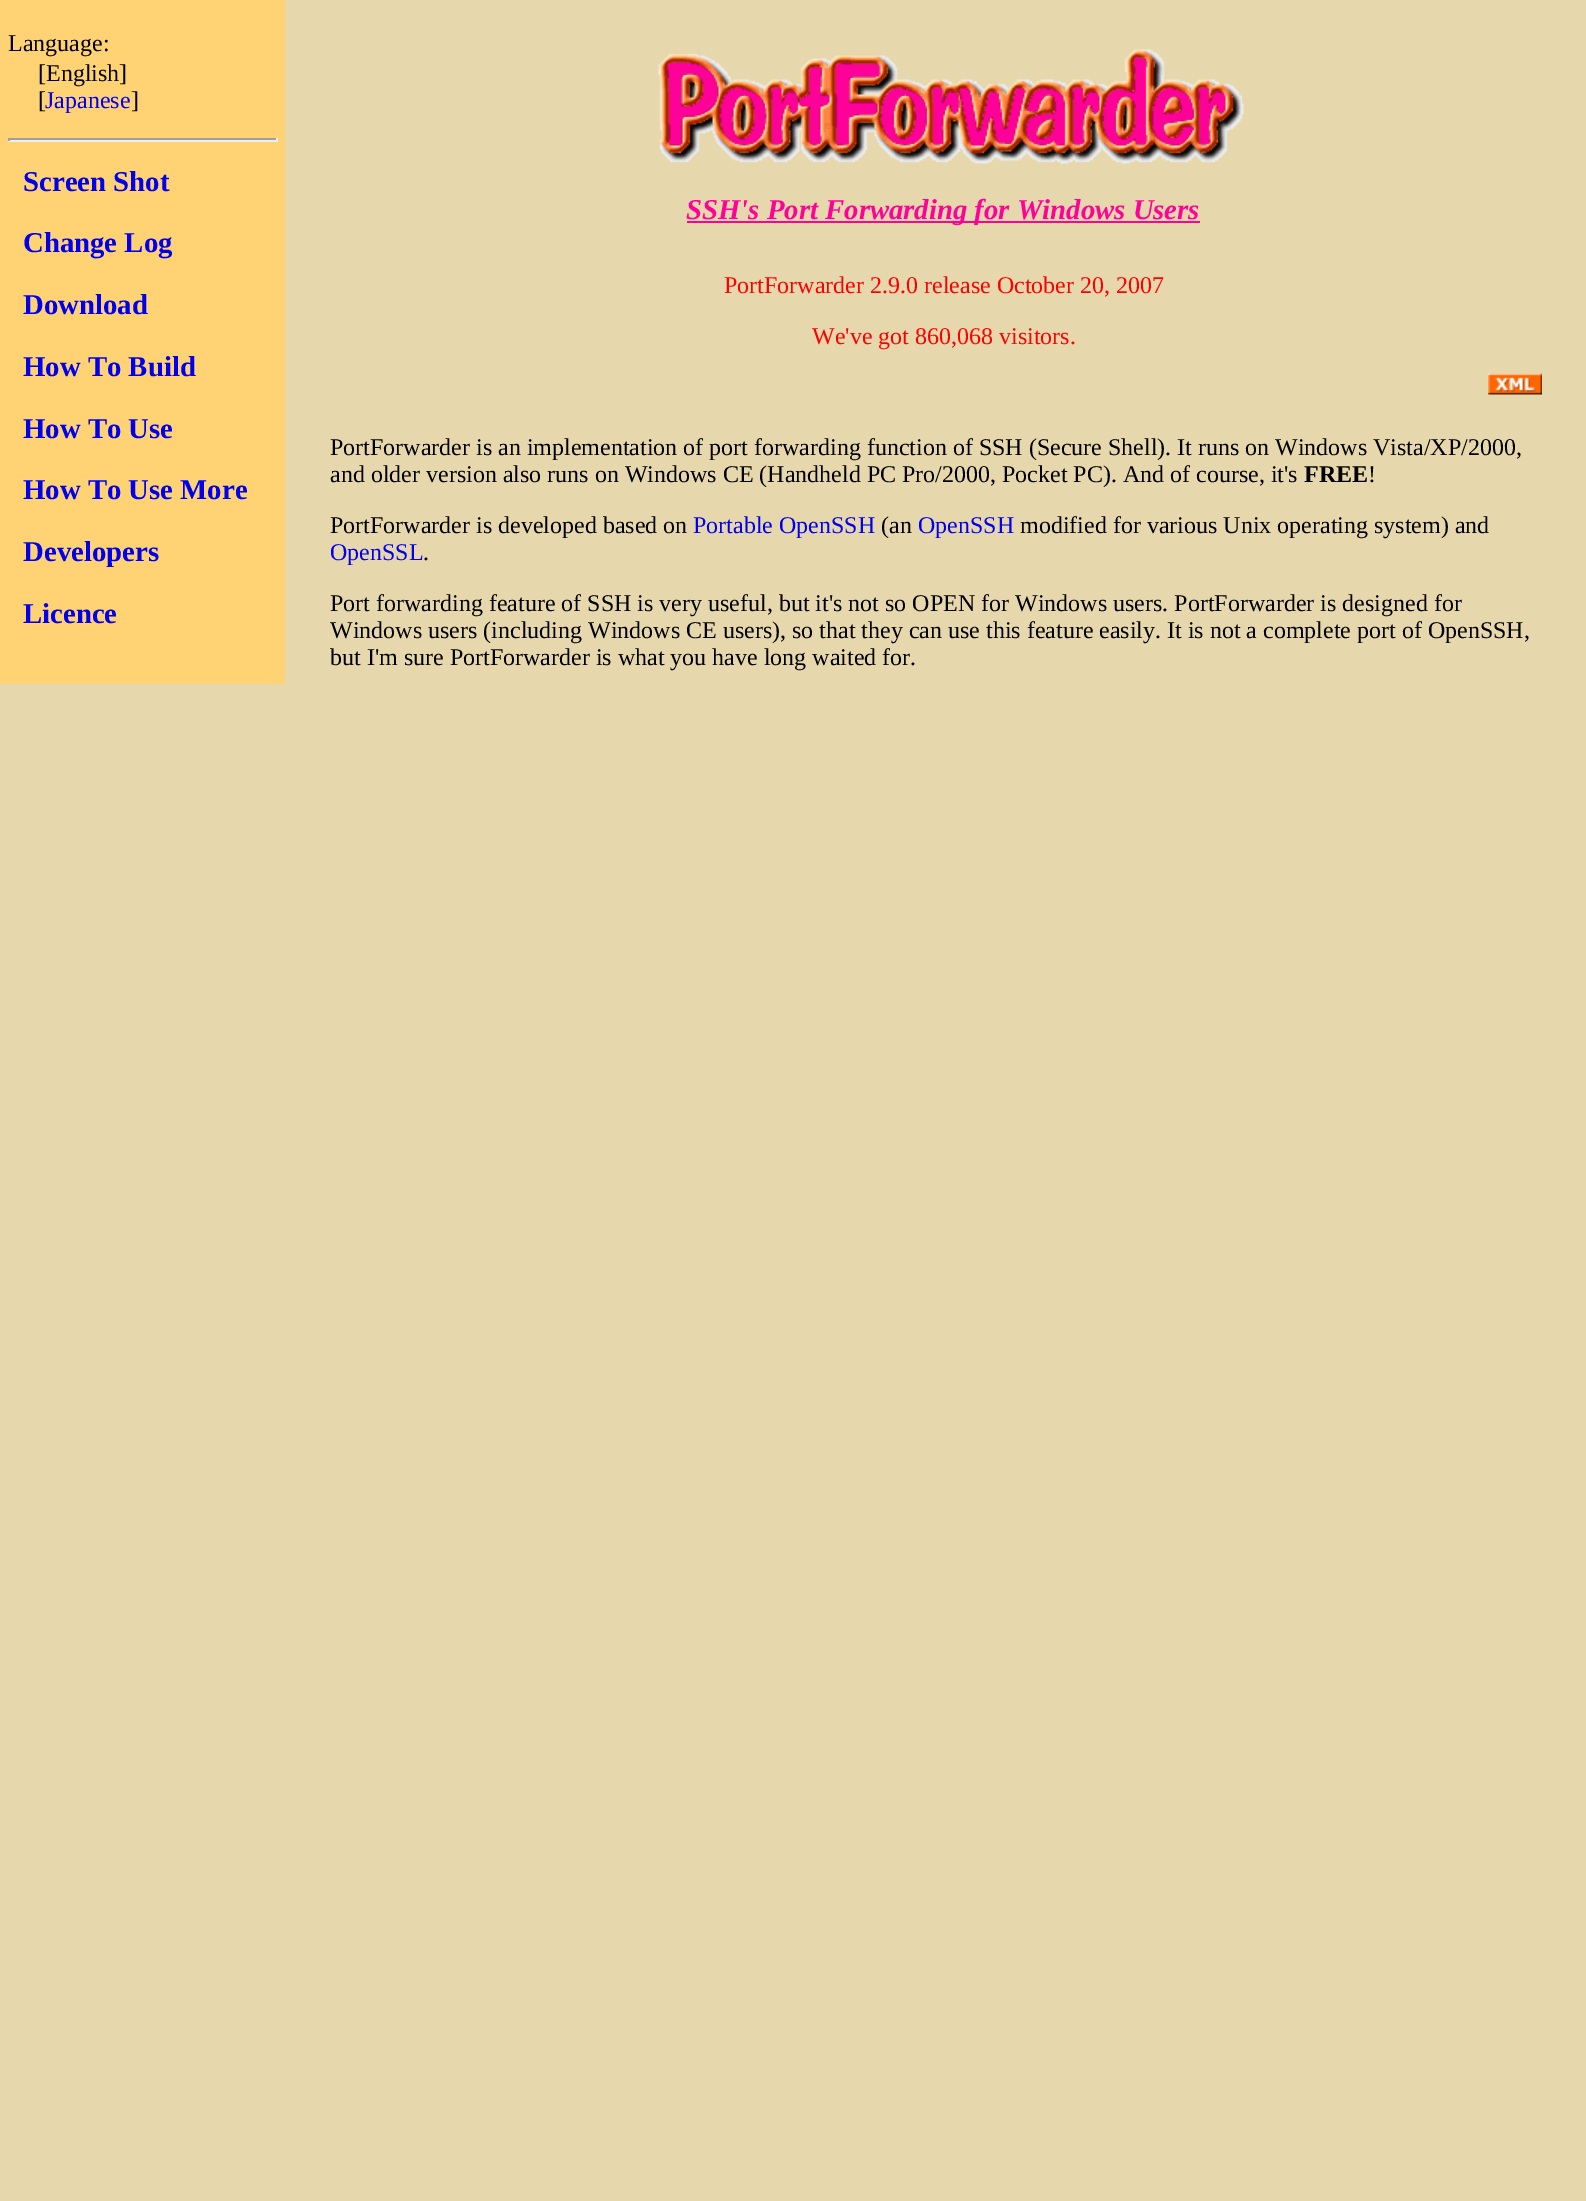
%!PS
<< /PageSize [1586 2201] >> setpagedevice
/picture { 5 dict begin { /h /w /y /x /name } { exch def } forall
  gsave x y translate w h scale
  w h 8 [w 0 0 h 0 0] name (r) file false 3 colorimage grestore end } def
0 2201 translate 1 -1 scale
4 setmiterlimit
0.902 0.843 0.675 setrgbcolor
0 0 1586 2201 rectfill
1 0.827 0.455 setrgbcolor
0 0 285 684 rectfill
/LiberationSerif-Regular [24 0 0 -24 0 0] selectfont
0 setgray
8 51 moveto (Language:) show
38 81 moveto ([English]) show
38 108 moveto ([) show
0 0 0.933 setrgbcolor
45 108 moveto (Japanese) show
0 setgray
131 108 moveto (]) show
0.624 setgray
8 138 270 2 rectfill
0.933 setgray
276 138 2 3 rectfill
8 140 270 2 rectfill
0.624 setgray
8 138 2 3 rectfill
/LiberationSerif-Bold [28.75 0 0 -28.75 0 0] selectfont
0 0 0.933 setrgbcolor
23 191 moveto (Screen Shot) show
23 252 moveto (Change Log) show
23 314 moveto (Download) show
23 376 moveto (How To Build) show
23 438 moveto (How To Use) show
23 499 moveto (How To Use More) show
23 561 moveto (Developers) show
23 623 moveto (Licence) show
(img1.rgb) 658 49 586 115 picture
1 0 0.6 setrgbcolor
687 221 513 2 rectfill
/LiberationSerif-BoldItalic [28.75 0 0 -28.75 0 0] selectfont
686 219 moveto (SSH's Port Forwarding for Windows Users) show
/LiberationSerif-Regular [24 0 0 -24 0 0] selectfont
1 0 0 setrgbcolor
724 293 moveto (PortForwarder 2.9.0 release October 20, 2007) show
812 344 moveto (We've got 860,068 visitors.) show
(img2.rgb) 1488 373 54 22 picture
0 setgray
330 455 moveto (PortForwarder is an implementation of port forwarding function of SSH \(Secure Shell\). It runs on Windows Vista/XP/2000,) show
330 482 moveto (and older version also runs on Windows CE \(Handheld PC Pro/2000, Pocket PC\). And of course, it's) show
/LiberationSerif-Bold [24 0 0 -24 0 0] selectfont
1304 482 moveto (FREE) show
/LiberationSerif-Regular [24 0 0 -24 0 0] selectfont
1368 482 moveto (!) show
330 533 moveto (PortForwarder is developed based on) show
0 0 0.933 setrgbcolor
693 533 moveto (Portable OpenSSH) show
0 setgray
881 533 moveto (\(an) show
0 0 0.933 setrgbcolor
918 533 moveto (OpenSSH) show
0 setgray
1020 533 moveto (modified for various Unix operating system\) and) show
0 0 0.933 setrgbcolor
330 560 moveto (OpenSSL) show
0 setgray
423 560 moveto (.) show
330 611 moveto (Port forwarding feature of SSH is very useful, but it's not so OPEN for Windows users. PortForwarder is designed for) show
330 638 moveto (Windows users \(including Windows CE users\), so that they can use this feature easily. It is not a complete port of OpenSSH,) show
330 665 moveto (but I'm sure PortForwarder is what you have long waited for.) show
showpage
